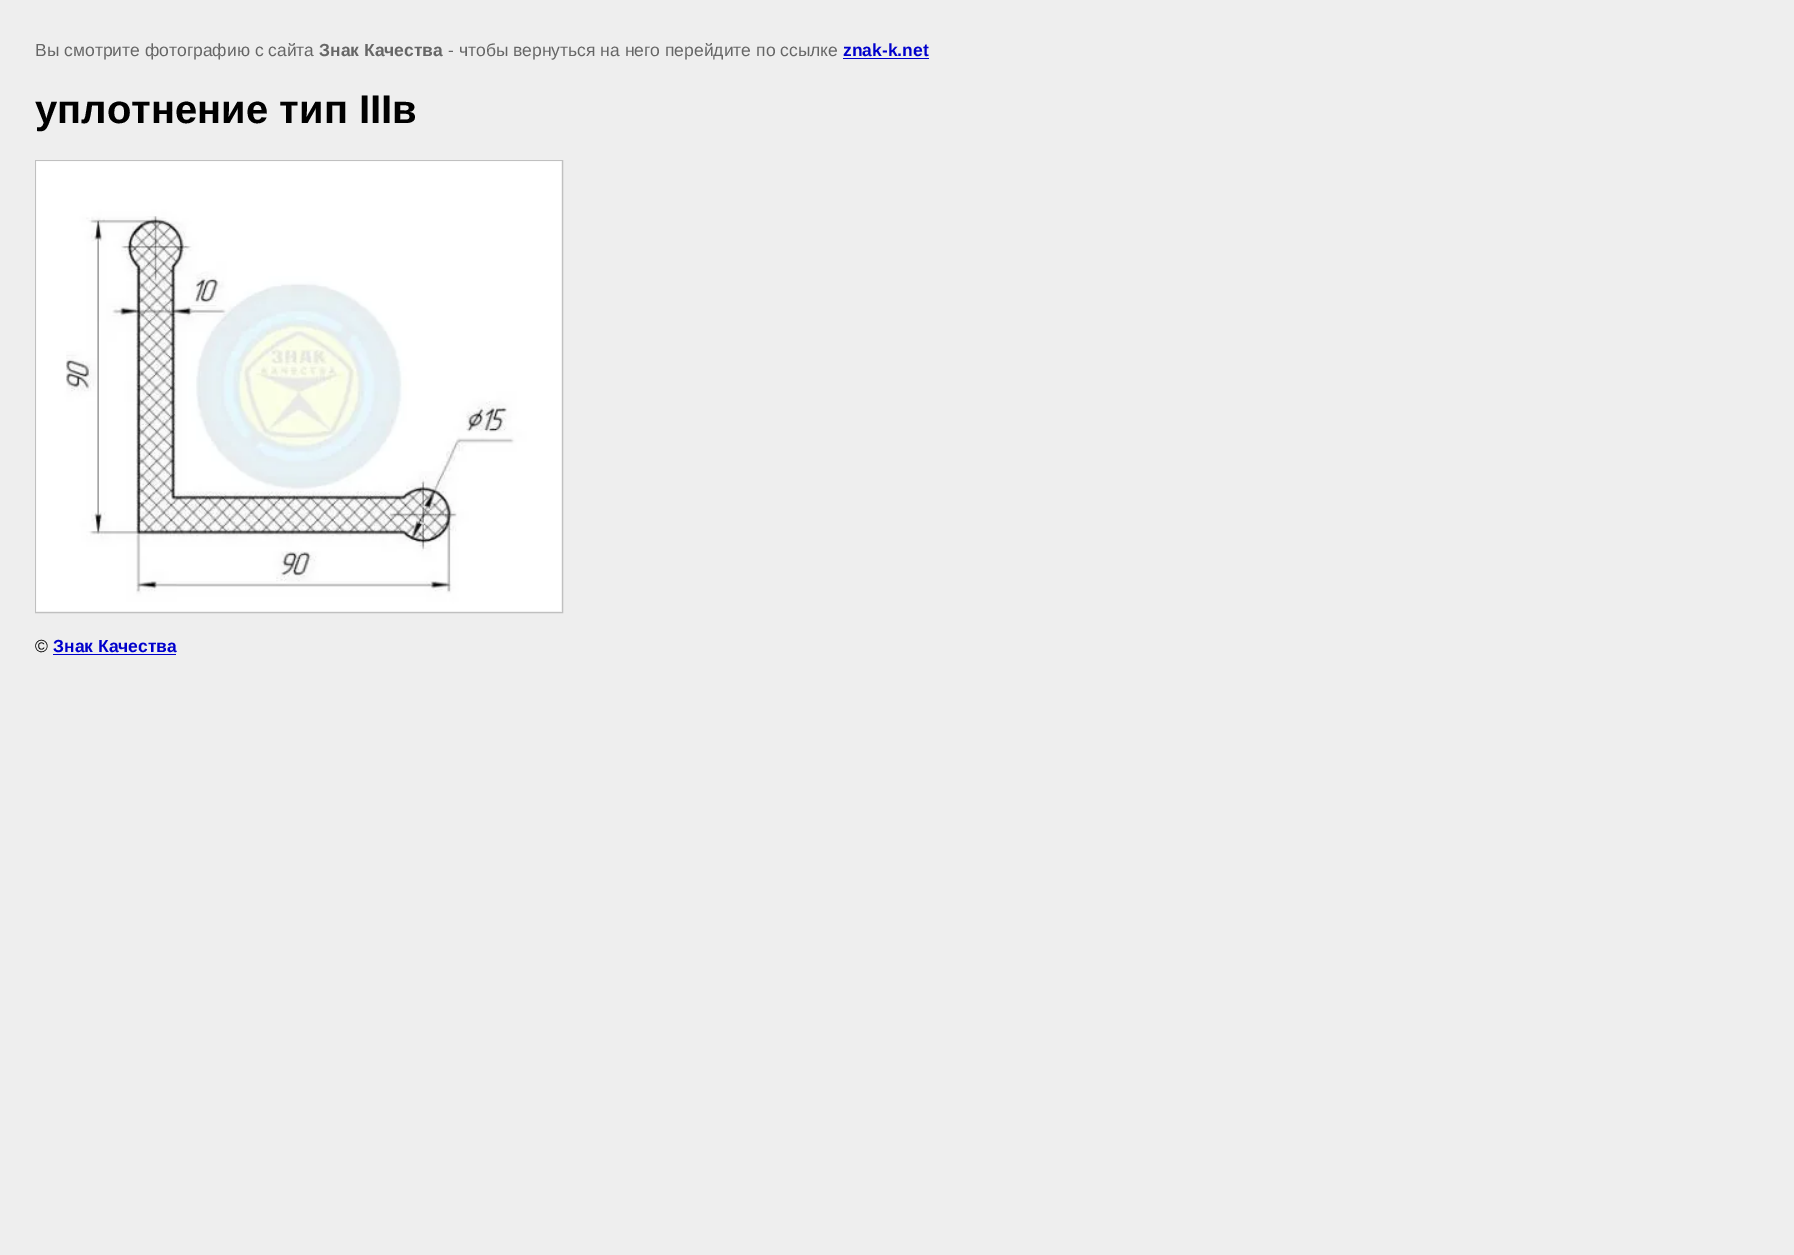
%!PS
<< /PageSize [1794 1255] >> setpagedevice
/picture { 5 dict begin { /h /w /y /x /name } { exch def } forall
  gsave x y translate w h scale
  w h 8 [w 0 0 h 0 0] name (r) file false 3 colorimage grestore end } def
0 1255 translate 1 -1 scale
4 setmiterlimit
0.933 setgray
0 0 1794 1255 rectfill
/LiberationSans-Regular [17.5 0 0 -17.5 0 0] selectfont
0.4 setgray
35 56 moveto (Вы смотрите фотографию с сайта) show
/LiberationSans-Bold [17.5 0 0 -17.5 0 0] selectfont
319 56 moveto (Знак Качества) show
/LiberationSans-Regular [17.5 0 0 -17.5 0 0] selectfont
448 56 moveto (- чтобы вернуться на него перейдите по ссылке) show
/LiberationSans-Bold [17.5 0 0 -17.5 0 0] selectfont
0 0 0.8 setrgbcolor
843 56 moveto (znak-k.net) show
843 58 86 1 rectfill
/LiberationSans-Bold [40 0 0 -40 0 0] selectfont
0 setgray
35 123 moveto (уплотнение тип IIIв) show
0.753 setgray
35.5 160.5 527 452 rectstroke
(img1.rgb) 36 161 526 451 picture
/LiberationSans-Regular [17.5 0 0 -17.5 0 0] selectfont
0 setgray
35 652 moveto (©) show
/LiberationSans-Bold [17.5 0 0 -17.5 0 0] selectfont
0 0 0.8 setrgbcolor
53 652 moveto (Знак Качества) show
53 654 123 1 rectfill
showpage
